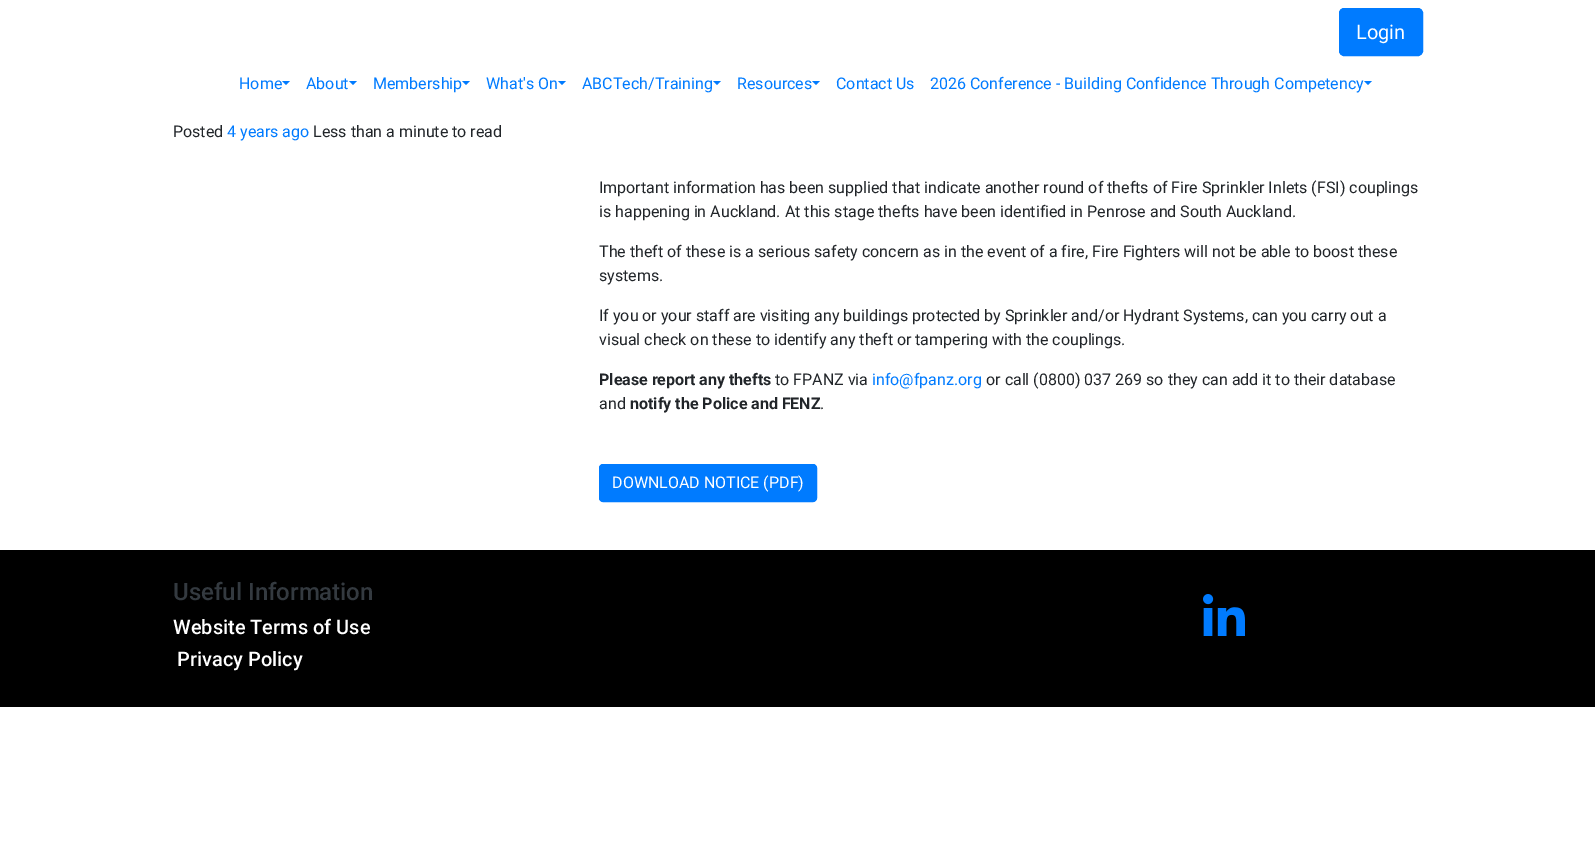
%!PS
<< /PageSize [1595 850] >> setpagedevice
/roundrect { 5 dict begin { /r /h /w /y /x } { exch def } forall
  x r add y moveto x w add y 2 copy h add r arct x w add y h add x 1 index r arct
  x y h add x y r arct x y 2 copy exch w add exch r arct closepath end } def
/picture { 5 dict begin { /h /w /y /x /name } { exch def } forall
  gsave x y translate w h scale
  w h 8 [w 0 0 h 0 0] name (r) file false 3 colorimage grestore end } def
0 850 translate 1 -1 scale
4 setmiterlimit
1 setgray
0 0 1595 850 rectfill
0 0.482 1 setrgbcolor
1339.5 8.5 83 47 4.5 roundrect gsave fill grestore
stroke
/Roboto-Regular [20 0 0 -20 0 0] selectfont
1 setgray
1356 39 moveto (Login) show
/Roboto-Regular [16 0 0 -16 0 0] selectfont
0 0.482 1 setrgbcolor
239 89 moveto (Home) show
newpath 282 81 moveto 290 81 lineto 286 85 lineto closepath fill
306 89 moveto (About) show
newpath 349 81 moveto 357 81 lineto 353 85 lineto closepath fill
373 89 moveto (Membership) show
newpath 462 81 moveto 470 81 lineto 466 85 lineto closepath fill
486 89 moveto (What's On) show
newpath 558 81 moveto 566 81 lineto 562 85 lineto closepath fill
582 89 moveto (ABCTech/Training) show
newpath 713 81 moveto 721 81 lineto 717 85 lineto closepath fill
737 89 moveto (Resources) show
newpath 812 81 moveto 820 81 lineto 816 85 lineto closepath fill
836 89 moveto (Contact Us) show
930 89 moveto (2026 Conference - Building Confidence Through Competency) show
newpath 1364 81 moveto 1372 81 lineto 1368 85 lineto closepath fill
0.129 0.145 0.161 setrgbcolor
173 137 moveto (Posted) show
0 0.482 1 setrgbcolor
227 137 moveto (4 years ago) show
0.129 0.145 0.161 setrgbcolor
313 137 moveto (Less than a minute to read) show
599 193 moveto (Important information has been supplied that indicate another round of thefts of Fire Sprinkler Inlets \(FSI\) couplings) show
599 217 moveto (is happening in Auckland. At this stage thefts have been identified in Penrose and South Auckland.) show
599 257 moveto (The theft of these is a serious safety concern as in the event of a fire, Fire Fighters will not be able to boost these) show
599 281 moveto (systems.) show
599 321 moveto (If you or your staff are visiting any buildings protected by Sprinkler and/or Hydrant Systems, can you carry out a) show
599 345 moveto (visual check on these to identify any theft or tampering with the couplings.) show
/Roboto-Bold [16 0 0 -16 0 0] selectfont
599 385 moveto (Please report any thefts) show
/Roboto-Regular [16 0 0 -16 0 0] selectfont
775 385 moveto (to FPANZ via) show
0 0.482 1 setrgbcolor
872 385 moveto (info@fpanz.org) show
0.129 0.145 0.161 setrgbcolor
986 385 moveto (or call \(0800\) 037 269 so they can add it to their database) show
599 409 moveto (and) show
/Roboto-Bold [16 0 0 -16 0 0] selectfont
630 409 moveto (notify the Police and FENZ) show
/Roboto-Regular [16 0 0 -16 0 0] selectfont
820 409 moveto (.) show
0 0.482 1 setrgbcolor
599.5 464.5 217 37 3.5 roundrect gsave fill grestore
stroke
1 setgray
612 488 moveto (DOWNLOAD NOTICE \(PDF\)) show
0 setgray
0 550 1595 157 rectfill
/Roboto-Medium [24 0 0 -24 0 0] selectfont
0.204 0.227 0.251 setrgbcolor
173 600 moveto (Useful Information) show
/Roboto-Medium [20 0 0 -20 0 0] selectfont
1 setgray
173 634 moveto (Website Terms of Use) show
177 666 moveto (Privacy Policy) show
(img1.rgb) 1203 594 42 42 picture
showpage
